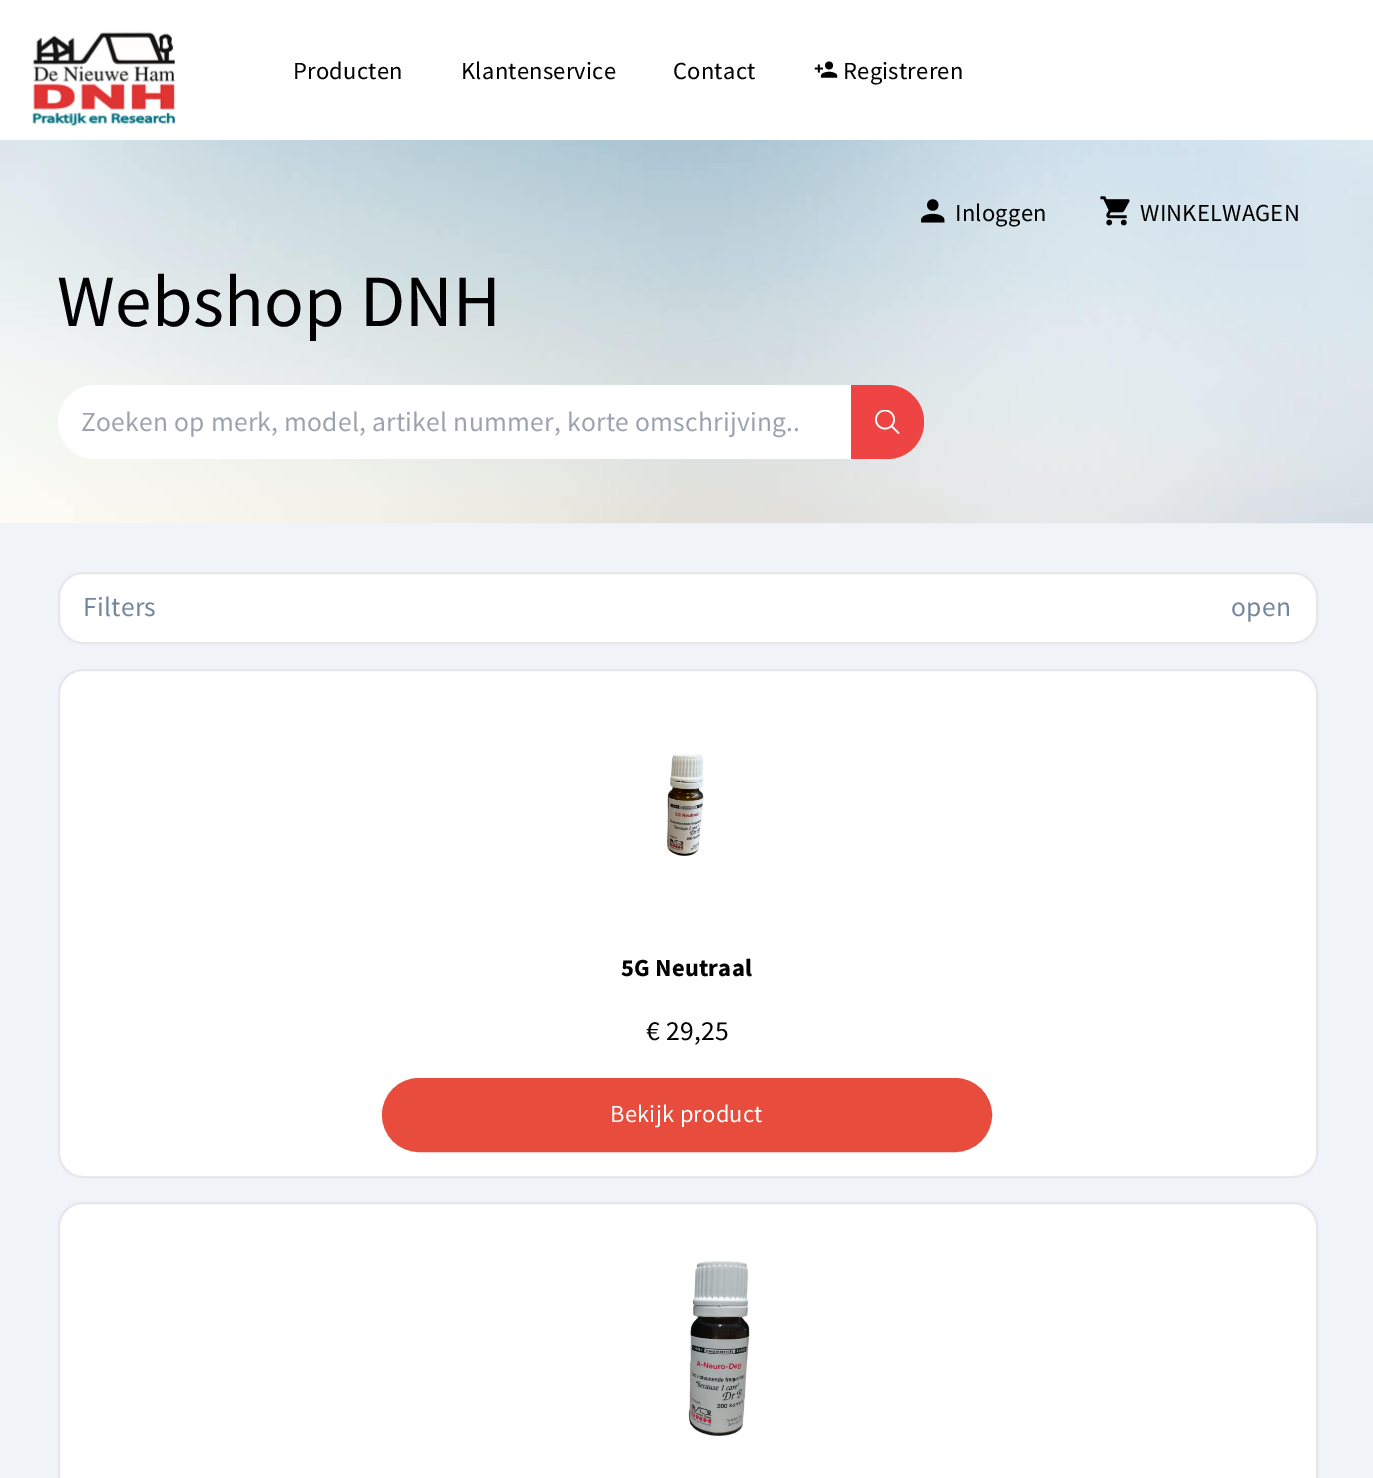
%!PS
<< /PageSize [1373 1478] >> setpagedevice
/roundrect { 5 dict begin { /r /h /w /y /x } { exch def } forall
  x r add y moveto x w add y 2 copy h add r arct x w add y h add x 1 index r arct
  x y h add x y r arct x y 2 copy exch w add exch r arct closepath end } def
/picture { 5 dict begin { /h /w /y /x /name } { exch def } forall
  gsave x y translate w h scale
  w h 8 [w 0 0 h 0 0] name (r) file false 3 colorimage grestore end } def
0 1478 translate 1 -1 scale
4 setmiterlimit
0.941 0.953 0.973 setrgbcolor
0 0 1373 1478 rectfill
1 setgray
0 0 1373 140 rectfill
(img1.rgb) 32 31 144 95 picture
/SourceSansPro-Regular [24.5 0 0 -24.5 0 0] selectfont
0 setgray
293 79 moveto 0.25 0 (Producten) ashow
461 79 moveto 0.25 0 (Klantenservice) ashow
673 79 moveto 0.25 0 (Contact) ashow
(img2.rgb) 814 61 24 17 picture
843 79 moveto 0.25 0 (Registreren) ashow
(img5.rgb) 0 140 1373 384 picture
(img3.rgb) 921 199 24 24 picture
955 221 moveto 0.25 0 (Inloggen) ashow
(img4.rgb) 1100 196 30 30 picture
1140 221 moveto 0.25 0 (WINKELWAGEN) ashow
/SourceSansPro-Regular [73.5 0 0 -73.5 0 0] selectfont
57 326 moveto 0.25 0 (Webshop DNH) ashow
1 setgray
newpath 95 385 moveto 851 385 lineto 851 459 lineto 95 459 lineto 74.5 459 58 442.5 58 422 curveto 58 401.5 74.5 385 95 385 curveto closepath fill
/SourceSansPro-Regular [27.55 0 0 -27.55 0 0] selectfont
0.612 0.639 0.686 setrgbcolor
81 431 moveto 0.25 0 (Zoeken op merk, model, artikel nummer, korte omschrijving..) ashow
0.937 0.267 0.267 setrgbcolor
newpath 851 385 moveto 887.5 385 lineto 907.5 385 924 401.5 924 421.5 curveto 924 422.5 lineto 924 442.5 907.5 459 887.5 459 curveto 851 459 lineto closepath fill
(img6.rgb) 875 410 25 24 picture
1 setgray
59 573 1258 70 24 roundrect gsave fill grestore
0.898 0.906 0.922 setrgbcolor
2 setlinewidth
stroke
0.451 0.529 0.612 setrgbcolor
83 616 moveto 0.25 0 (Filters) ashow
1231 616 moveto 0.25 0 (open) ashow
1 setgray
59 670 1258 507 24 roundrect gsave fill grestore
0.898 0.906 0.922 setrgbcolor
stroke
(img7.rgb) 667 754 37 102 picture
/SourceSansPro-Bold [24.5 0 0 -24.5 0 0] selectfont
0 setgray
621 976 moveto 0.25 0 (5G Neutraal) ashow
/SourceSansPro-Regular [27.55 0 0 -27.55 0 0] selectfont
646 1040 moveto 0.25 0 (€ 29,25) ashow
0.906 0.298 0.235 setrgbcolor
383 1079 608 72 36 roundrect gsave fill grestore
stroke
/SourceSansPro-Regular [24.5 0 0 -24.5 0 0] selectfont
1 setgray
610 1122 moveto 0.25 0 (Bekijk product) ashow
59 1203 1258 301 24 roundrect gsave fill grestore
0.898 0.906 0.922 setrgbcolor
stroke
(img8.rgb) 688 1260 62 177 picture
showpage
